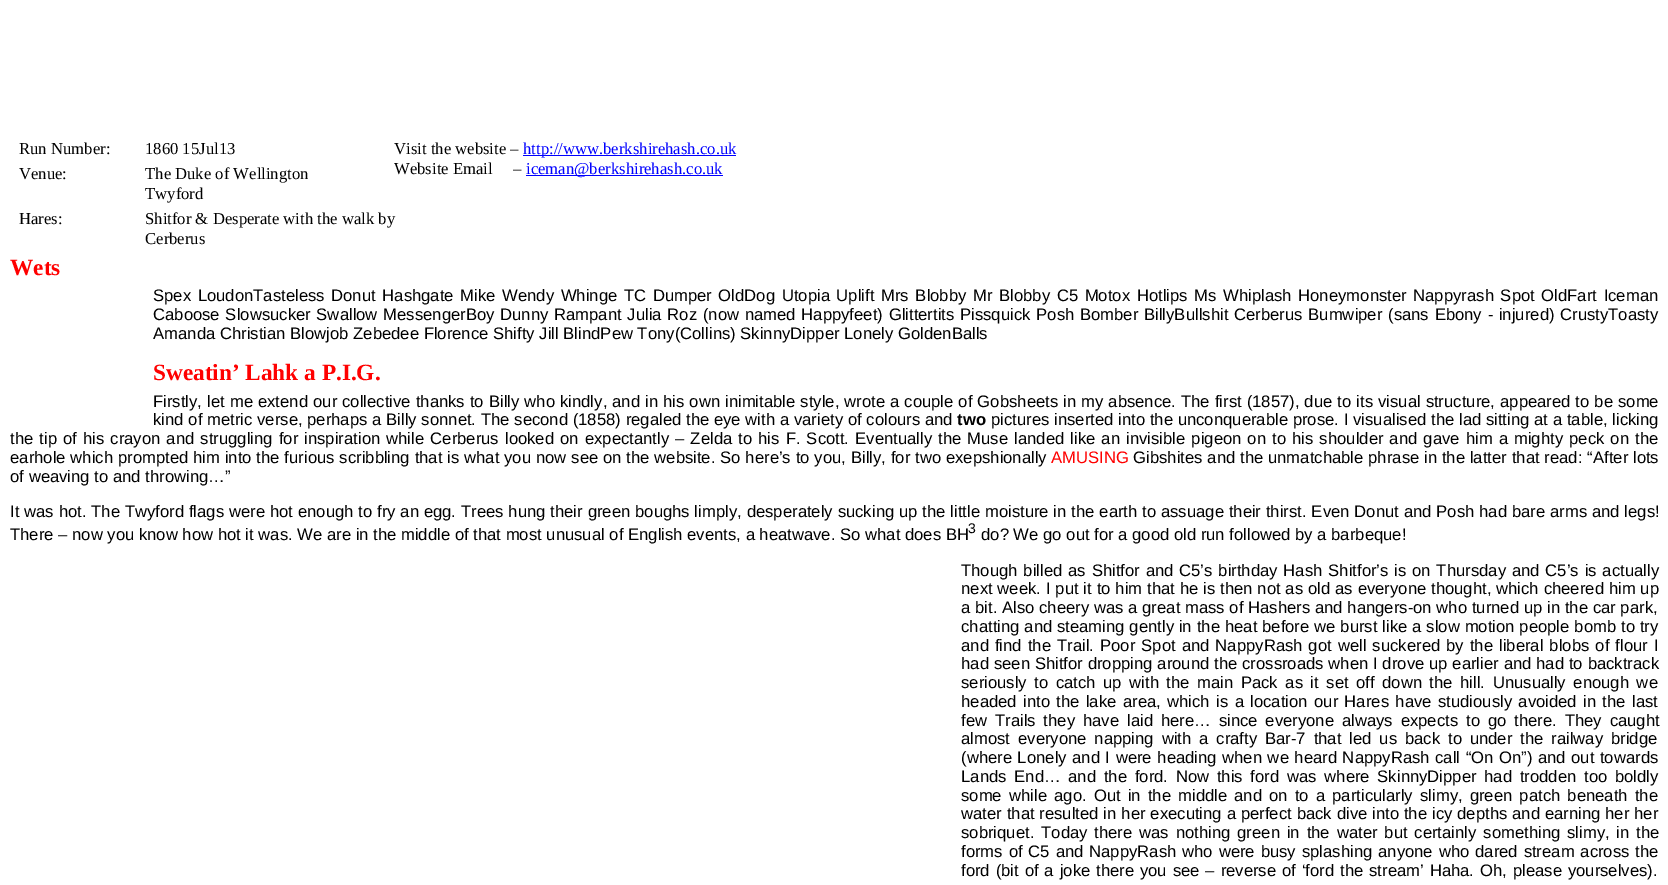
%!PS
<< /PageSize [1668 885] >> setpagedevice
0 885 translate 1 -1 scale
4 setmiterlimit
1 setgray
0 0 1668 885 rectfill
/LiberationSerif-Regular [16.67 0 0 -16.67 0 0] selectfont
0 setgray
19 154 moveto (Run Number:) show
145 154 moveto (1860 15Jul13) show
394 154 moveto (Visit the website –) show
0 0 1 setrgbcolor
523 155 213 1 rectfill
523 154 moveto (http://www.berkshirehash.co.uk) show
0 setgray
394 174 moveto (Website Email     –) show
0 0 1 setrgbcolor
526 175 197 1 rectfill
526 174 moveto (iceman@berkshirehash.co.uk) show
0 setgray
19 179 moveto (Venue:) show
145 179 moveto (The Duke of Wellington) show
145 199 moveto (Twyford) show
19 224 moveto (Hares:) show
145 224 moveto (Shitfor & Desperate with the walk by) show
145 244 moveto (Cerberus) show
/LiberationSerif-Bold [23.25 0 0 -23.25 0 0] selectfont
1 0 0 setrgbcolor
10 275 moveto (Wets) show
/LiberationSans-Regular [16.67 0 0 -16.67 0 0] selectfont
0 setgray
153 301 moveto 2 0 32 (Spex LoudonTasteless Donut Hashgate Mike Wendy Whinge TC Dumper OldDog Utopia Uplift Mrs Blobby Mr Blobby C5 Motox Hotlips Ms Whiplash Honeymonster Nappyrash Spot OldFart Iceman) widthshow
153 320 moveto 1.1 0 32 (Caboose Slowsucker Swallow MessengerBoy Dunny Rampant Julia Roz \(now named Happyfeet\) Glittertits Pissquick Posh Bomber BillyBullshit Cerberus Bumwiper \(sans Ebony - injured\) CrustyToasty) widthshow
153 339 moveto (Amanda Christian Blowjob Zebedee Florence Shifty Jill BlindPew Tony\(Collins\) SkinnyDipper Lonely GoldenBalls) show
/LiberationSerif-Bold [23.25 0 0 -23.25 0 0] selectfont
1 0 0 setrgbcolor
153 380 moveto (Sweatin’ Lahk a P.I.G.) show
/LiberationSans-Regular [16.67 0 0 -16.67 0 0] selectfont
0 setgray
153 407 moveto 0.4 0 32 (Firstly, let me extend our collective thanks to Billy who kindly, and in his own inimitable style, wrote a couple of Gobsheets in my absence. The first \(1857\), due to its visual structure, appeared to be some) widthshow
153 425 moveto 0.1 0 32 (kind of metric verse, perhaps a Billy sonnet. The second \(1858\) regaled the eye with a variety of colours and) widthshow
/LiberationSans-Bold [16.67 0 0 -16.67 0 0] selectfont
957 425 moveto (two) show
/LiberationSans-Regular [16.67 0 0 -16.67 0 0] selectfont
991 425 moveto 0.1 0 32 (pictures inserted into the unconquerable prose. I visualised the lad sitting at a table, licking) widthshow
10 444 moveto 1.45 0 32 (the tip of his crayon and struggling for inspiration while Cerberus looked on expectantly – Zelda to his F. Scott. Eventually the Muse landed like an invisible pigeon on to his shoulder and gave him a mighty peck on the) widthshow
10 463 moveto 0.2 0 32 (earhole which prompted him into the furious scribbling that is what you now see on the website. So here’s to you, Billy, for two exepshionally) widthshow
1 0 0 setrgbcolor
1051 463 moveto (AMUSING) show
0 setgray
1133 463 moveto 0.2 0 32 (Gibshites and the unmatchable phrase in the latter that read: “) widthshow
1593 463 moveto (After lots) show
10 482 moveto (of weaving to and throwing…”) show
10 517 moveto 0.2 0 32 (It was hot. The Twyford flags were hot enough to fry an egg. Trees hung their green boughs limply, desperately sucking up the little moisture in the earth to assuage their thirst. Even Donut and Posh had bare arms and legs!) widthshow
10 540 moveto (There – now you know how hot it was. We are in the middle of that most unusual of English events, a heatwave. So what does BH) show
/LiberationSans-Regular [14 0 0 -14 0 0] selectfont
968 533 moveto (3) show
/LiberationSans-Regular [16.67 0 0 -16.67 0 0] selectfont
981 540 moveto (do? We go out for a good old run followed by a barbeque!) show
961 576 moveto 1.2 0 32 (Though billed as Shitfor and C5’s birthday Hash Shitfor’s is on Thursday and C5’s is actually) widthshow
961 594 moveto 0.25 0 32 (next week. I put it to him that he is then not as old as everyone thought, which cheered him up) widthshow
961 613 moveto 0.1 0 32 (a bit. Also cheery was a great mass of Hashers and hangers-on who turned up in the car park,) widthshow
961 632 moveto 0.25 0 32 (chatting and steaming gently in the heat before we burst like a slow motion people bomb to try) widthshow
961 651 moveto 1.4 0 32 (and find the Trail. Poor Spot and NappyRash got well suckered by the liberal blobs of flour I) widthshow
961 669 moveto 0.2 0 32 (had seen Shitfor dropping around the crossroads when I drove up earlier and had to backtrack) widthshow
961 688 moveto 2.9 0 32 (seriously to catch up with the main Pack as it set off down the hill. Unusually enough we) widthshow
961 707 moveto 1.75 0 32 (headed into the lake area, which is a location our Hares have studiously avoided in the last) widthshow
961 726 moveto 3.25 0 32 (few Trails they have laid here… since everyone always expects to go there. They caught) widthshow
961 744 moveto 3.25 0 32 (almost everyone napping with a crafty Bar-7 that led us back to under the railway bridge) widthshow
961 763 moveto 0.9 0 32 (\(where Lonely and I were heading when we heard NappyRash call “On On”\) and out towards) widthshow
961 782 moveto 3.1 0 32 (Lands End… and the ford. Now this ford was where SkinnyDipper had trodden too boldly) widthshow
961 801 moveto 2.5 0 32 (some while ago. Out in the middle and on to a particularly slimy, green patch beneath the) widthshow
961 819 moveto 0.25 0 32 (water that resulted in her executing a perfect back dive into the icy depths and earning her her) widthshow
961 838 moveto 2.25 0 32 (sobriquet. Today there was nothing green in the water but certainly something slimy, in the) widthshow
961 857 moveto 1.25 0 32 (forms of C5 and NappyRash who were busy splashing anyone who dared stream across the) widthshow
961 876 moveto 1.25 0 32 (ford \(bit of a joke there you see – reverse of ‘ford the stream’ Haha. Oh, please yourselves\).) widthshow
showpage
